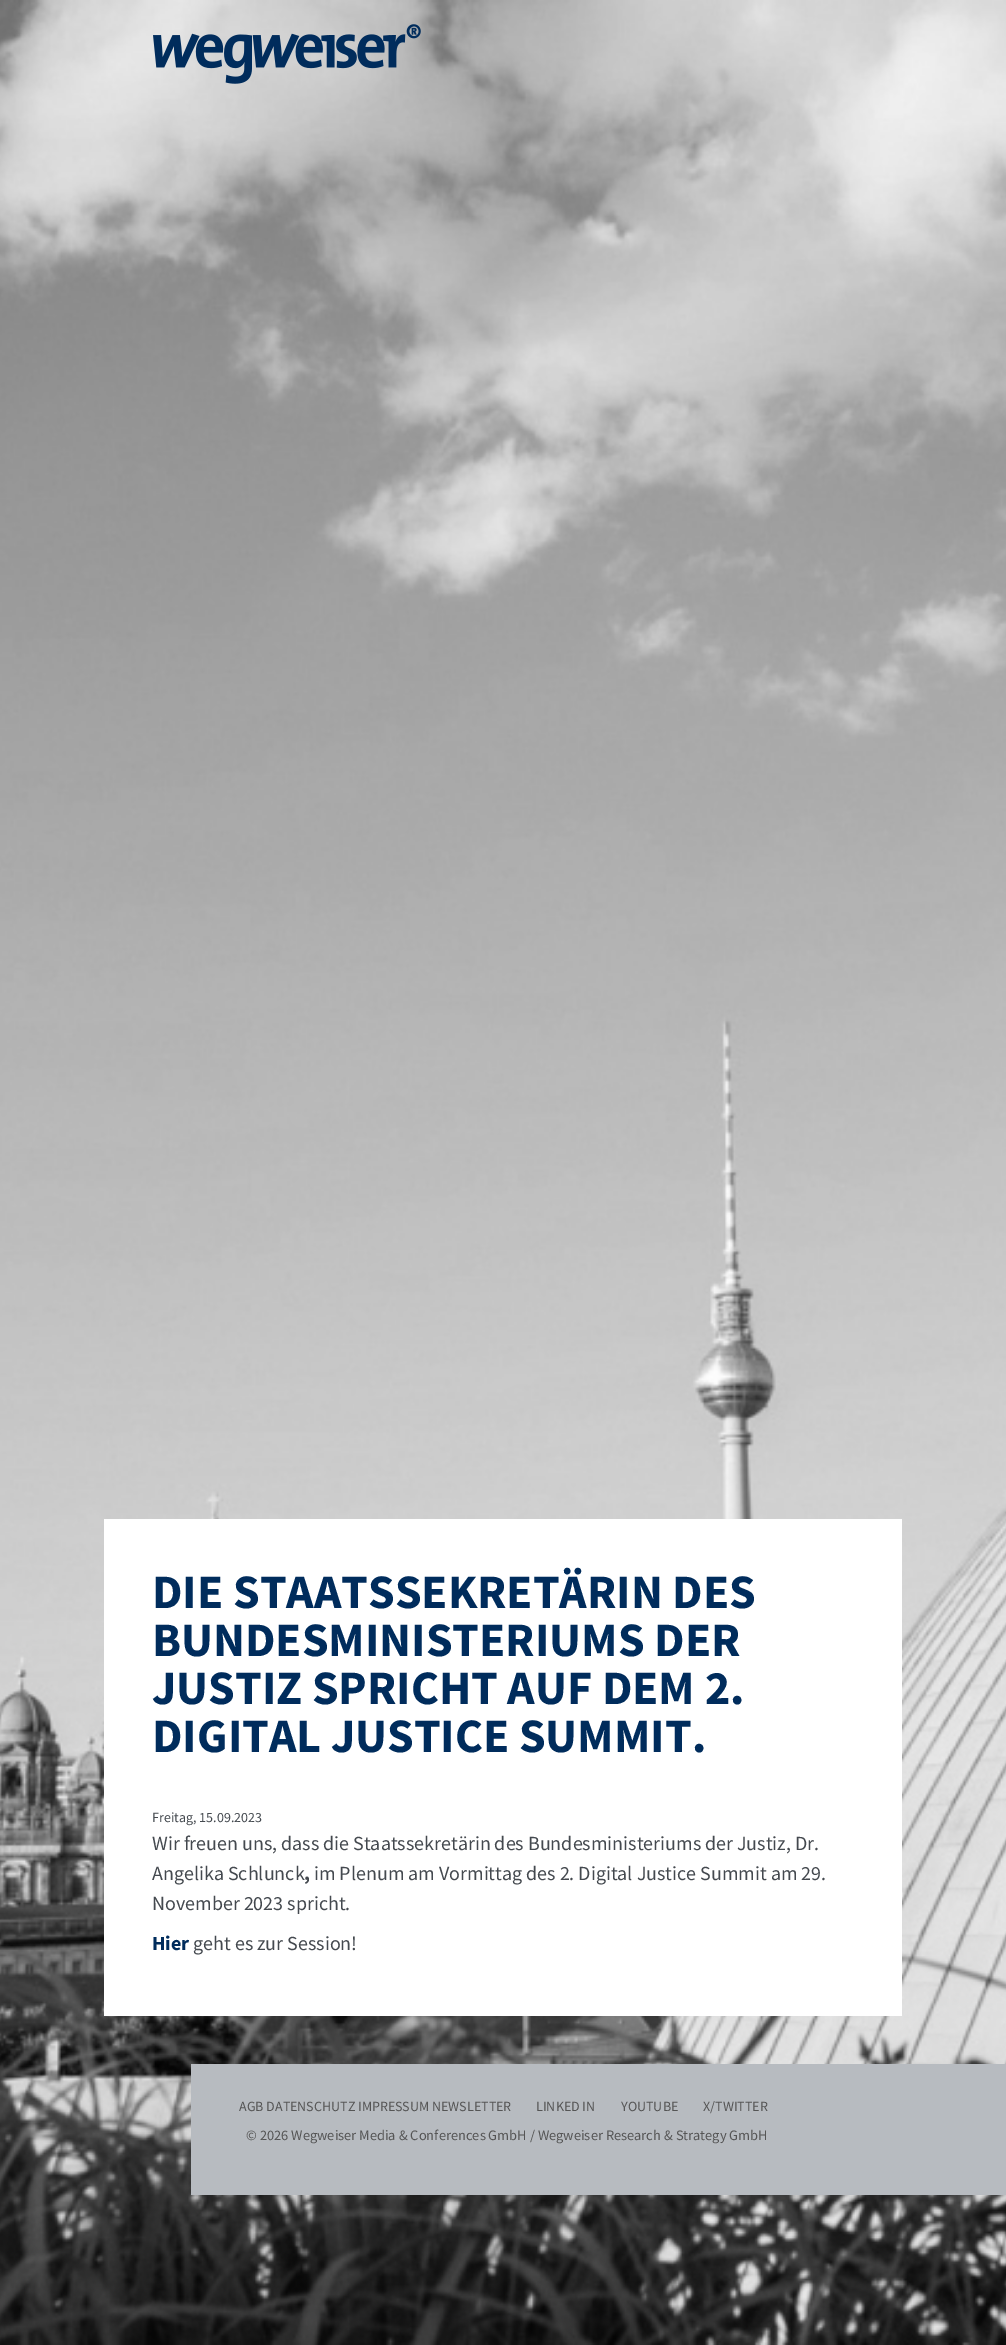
%!PS
<< /PageSize [1006 2345] >> setpagedevice
/picture { 5 dict begin { /h /w /y /x /name } { exch def } forall
  gsave x y translate w h scale
  w h 8 [w 0 0 h 0 0] name (r) file false 3 colorimage grestore end } def
0 2345 translate 1 -1 scale
4 setmiterlimit
1 setgray
0 0 1006 2345 rectfill
(img1.rgb) 0 0 1006 2345 picture
(img2.rgb) 153 24 268 60 picture
104 1519 798 497 rectfill
/SourceSansPro-Bold [48 0 0 -48 0 0] selectfont
0 0.173 0.361 setrgbcolor
152 1608 moveto (DIE STAATSSEKRETÄRIN DES) show
152 1656 moveto (BUNDESMINISTERIUMS DER) show
152 1704 moveto (JUSTIZ SPRICHT AUF DEM 2.) show
152 1752 moveto (DIGITAL JUSTICE SUMMIT.) show
/SourceSansPro-Regular [14 0 0 -14 0 0] selectfont
0.267 0.286 0.31 setrgbcolor
152 1822 moveto (Freitag, 15.09.2023) show
/SourceSansPro-Regular [20 0 0 -20 0 0] selectfont
152 1850 moveto (Wir freuen uns, dass die Staatssekretärin des Bundesministeriums der Justiz, Dr.) show
152 1880 moveto (Angelika Schlunck) show
/SourceSansPro-Bold [20 0 0 -20 0 0] selectfont
304 1880 moveto (,) show
/SourceSansPro-Regular [20 0 0 -20 0 0] selectfont
314 1880 moveto (im Plenum am Vormittag des 2. Digital Justice Summit am 29.) show
152 1910 moveto (November 2023 spricht.) show
/SourceSansPro-Bold [20 0 0 -20 0 0] selectfont
0 0.173 0.361 setrgbcolor
152 1950 moveto (Hier) show
/SourceSansPro-Regular [20 0 0 -20 0 0] selectfont
0.267 0.286 0.31 setrgbcolor
193 1950 moveto (geht es zur Session!) show
0.718 0.733 0.753 setrgbcolor
191 2064 815 131 rectfill
/SourceSansPro-Regular [14 0 0 -14 0 0] selectfont
0.333 setgray
239 2111 moveto (AGB DATENSCHUTZ IMPRESSUM NEWSLETTER) show
536 2111 moveto (LINKED IN) show
621 2111 moveto (YOUTUBE) show
703 2111 moveto (X/TWITTER) show
/SourceSansPro-Regular [14.45 0 0 -14.45 0 0] selectfont
246 2140 moveto (© 2026 Wegweiser Media & Conferences GmbH / Wegweiser Research & Strategy GmbH) show
showpage
